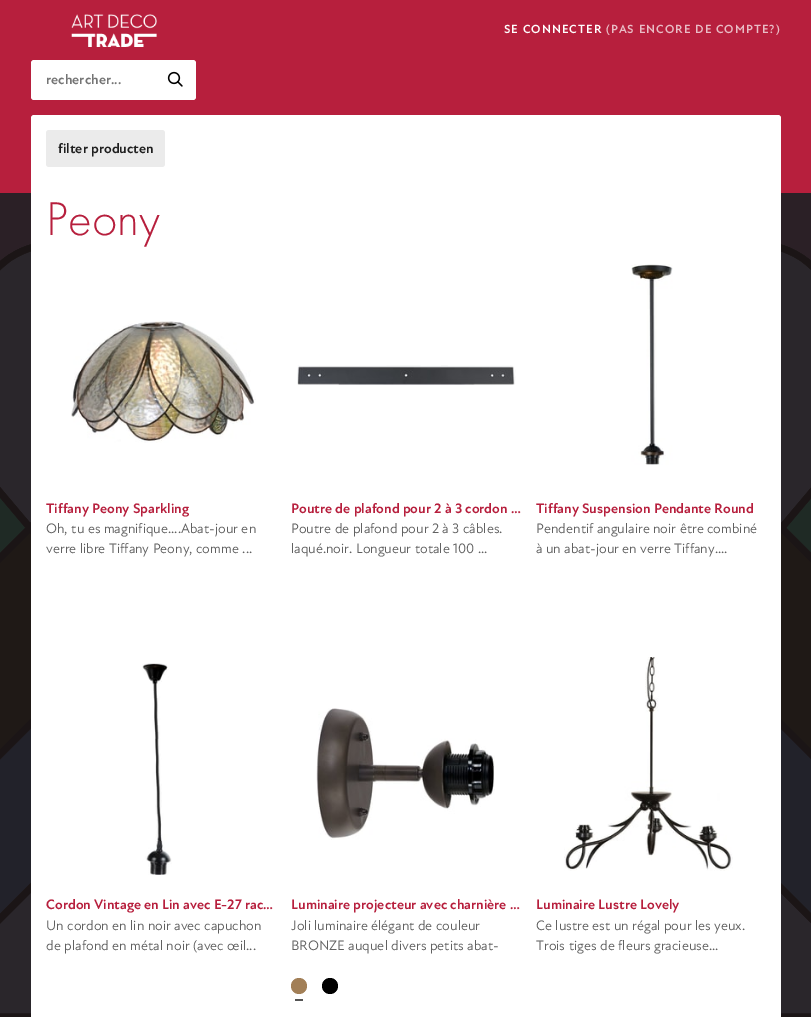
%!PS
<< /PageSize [811 1017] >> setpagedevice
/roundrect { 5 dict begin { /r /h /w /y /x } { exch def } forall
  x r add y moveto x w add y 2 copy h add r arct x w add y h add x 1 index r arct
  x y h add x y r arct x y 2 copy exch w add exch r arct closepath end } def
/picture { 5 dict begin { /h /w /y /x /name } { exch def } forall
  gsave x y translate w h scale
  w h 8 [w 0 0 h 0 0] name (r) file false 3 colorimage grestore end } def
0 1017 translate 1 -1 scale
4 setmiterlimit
0.094 0.067 0.071 setrgbcolor
0 0 811 1017 rectfill
(img1.rgb) 0 193 811 824 picture
0.718 0.122 0.239 setrgbcolor
0 0 811 193 rectfill
(img2.rgb) 71 14 86 33 picture
/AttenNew-Bold [12 0 0 -12 0 0] selectfont
1 setgray
504 33 moveto 1 0 (SE CONNECTER) ashow
0.914 0.737 0.773 setrgbcolor
606 33 moveto 1 0 (\(PAS ENCORE DE COMPTE?\)) ashow
1 setgray
31 60 165 40 3 roundrect fill
/AttenNew-Bold [14 0 0 -14 0 0] selectfont
0.459 setgray
46 84 moveto (rechercher...) show
(img3.rgb) 167 71 16 16 picture
1 setgray
31 115 750 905 3 roundrect fill
0.922 setgray
46 130 119 37 3 roundrect fill
0.122 setgray
58 153 moveto (filter producten) show
/FuturaPT-Light [49 0 0 -49 0 0] selectfont
0.718 0.122 0.239 setrgbcolor
46 235 moveto (Peony) show
(img4.rgb) 71 321 185 122 picture
/AttenNew-Bold [14 0 0 -14 0 0] selectfont
46 513 moveto (Tiffany Peony Sparkling) show
/AttenNew-Regular [14 0 0 -14 0 0] selectfont
0.38 setgray
46 533 moveto (Oh, tu es magnifique....Abat-jour en) show
46 553 moveto (verre libre Tiffany Peony, comme ...) show
(img5.rgb) 297 365 219 20 picture
/AttenNew-Bold [14 0 0 -14 0 0] selectfont
0.718 0.122 0.239 setrgbcolor
291 513 moveto (Poutre de plafond pour 2 à 3 cordon …) show
/AttenNew-Regular [14 0 0 -14 0 0] selectfont
0.38 setgray
291 533 moveto (Poutre de plafond pour 2 à 3 câbles.) show
291 553 moveto (laqué.noir. Longueur totale 100 ...) show
(img6.rgb) 631 264 42 201 picture
/AttenNew-Bold [14 0 0 -14 0 0] selectfont
0.718 0.122 0.239 setrgbcolor
536 513 moveto (Tiffany Suspension Pendante Round) show
/AttenNew-Regular [14 0 0 -14 0 0] selectfont
0.38 setgray
536 533 moveto (Pendentif angulaire noir être combiné) show
536 553 moveto (à un abat-jour en verre Tiffany....) show
(img7.rgb) 142 663 30 212 picture
/AttenNew-Bold [14 0 0 -14 0 0] selectfont
0.718 0.122 0.239 setrgbcolor
46 909 moveto (Cordon Vintage en Lin avec E-27 rac…) show
/AttenNew-Regular [14 0 0 -14 0 0] selectfont
0.38 setgray
46 930 moveto (Un cordon en lin noir avec capuchon) show
46 950 moveto (de plafond en métal noir \(avec œil...) show
(img8.rgb) 316 708 179 132 picture
/AttenNew-Bold [14 0 0 -14 0 0] selectfont
0.718 0.122 0.239 setrgbcolor
291 909 moveto (Luminaire projecteur avec charnière …) show
/AttenNew-Regular [14 0 0 -14 0 0] selectfont
0.38 setgray
291 930 moveto (Joli luminaire élégant de couleur) show
291 950 moveto (BRONZE auquel divers petits abat-) show
0.635 0.498 0.341 setrgbcolor
newpath 299 986 8 0 360 arc closepath fill
0.333 setgray
295 999 8 2 rectfill
0 setgray
newpath 330 986 8 0 360 arc closepath fill
(img9.rgb) 564 657 169 214 picture
/AttenNew-Bold [14 0 0 -14 0 0] selectfont
0.718 0.122 0.239 setrgbcolor
536 909 moveto (Luminaire Lustre Lovely) show
/AttenNew-Regular [14 0 0 -14 0 0] selectfont
0.38 setgray
536 930 moveto (Ce lustre est un régal pour les yeux.) show
536 950 moveto (Trois tiges de fleurs gracieuse...) show
showpage
